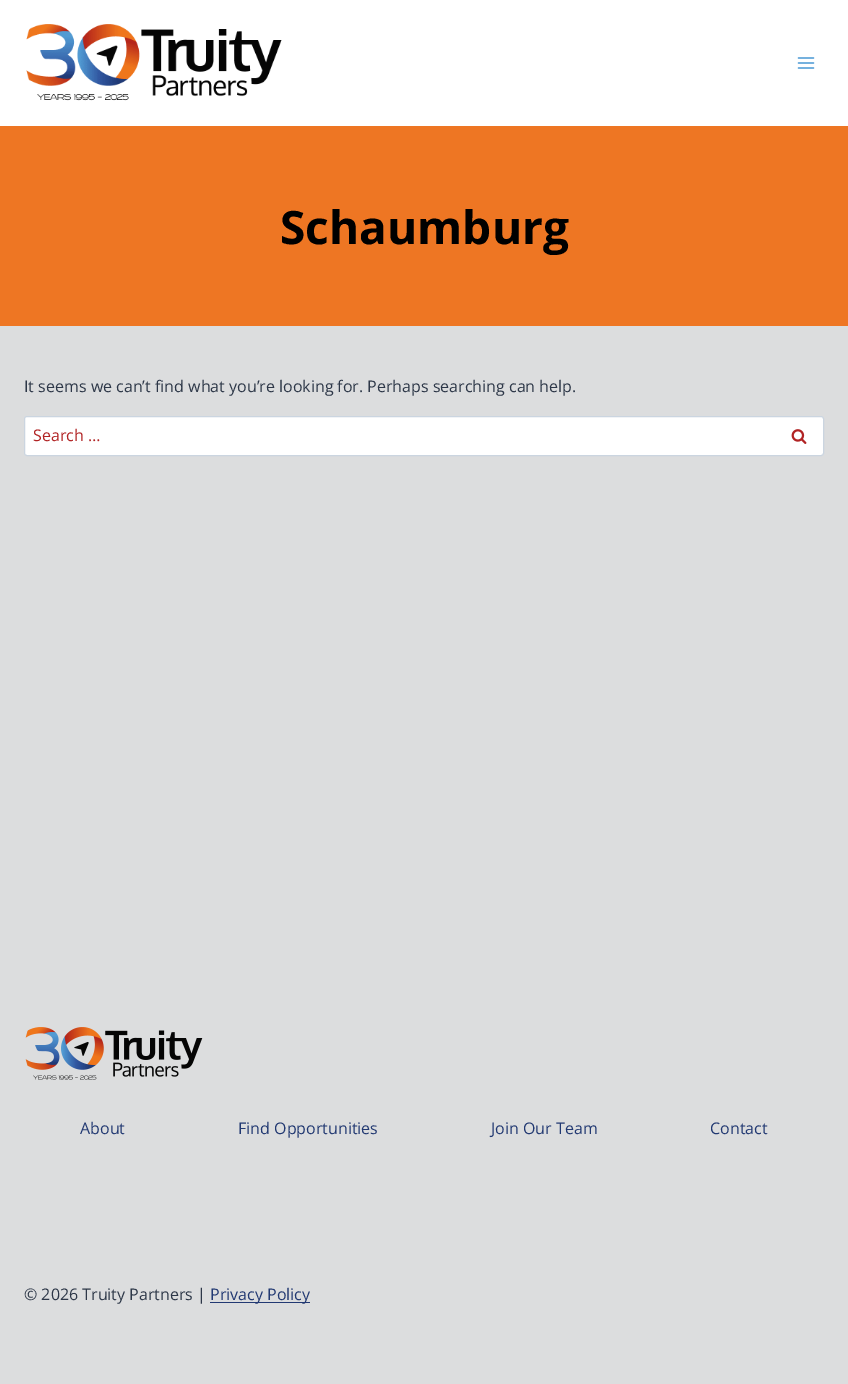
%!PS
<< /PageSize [848 1384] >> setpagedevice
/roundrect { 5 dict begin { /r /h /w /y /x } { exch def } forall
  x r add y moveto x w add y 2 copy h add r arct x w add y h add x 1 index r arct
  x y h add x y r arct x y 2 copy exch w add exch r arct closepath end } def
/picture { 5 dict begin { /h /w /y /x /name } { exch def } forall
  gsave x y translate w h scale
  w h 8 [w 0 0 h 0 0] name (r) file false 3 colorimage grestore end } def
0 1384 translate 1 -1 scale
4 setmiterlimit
0.863 0.867 0.871 setrgbcolor
0 0 848 1384 rectfill
1 setgray
0 0 848 126 rectfill
(img1.rgb) 26 24 256 77 picture
(img2.rgb) 797 57 18 12 picture
0.933 0.463 0.137 setrgbcolor
0 126 848 200 rectfill
/OpenSans-Bold [46 0 0 -46 0 0] selectfont
0 setgray
280 244 moveto (Schaumburg) show
/OpenSans-Regular [16 0 0 -16 0 0] selectfont
0.176 0.216 0.282 setrgbcolor
24 392 moveto (It seems we can’t find what you’re looking for. Perhaps searching can help.) show
1 setgray
24.5 416.5 799 39 2.5 roundrect gsave fill grestore
0.796 0.835 0.878 setrgbcolor
stroke
0.694 0.137 0.141 setrgbcolor
33 441 moveto (Search …) show
(img3.rgb) 791 429 16 15 picture
(img4.rgb) 25 1027 178 53 picture
0.133 0.224 0.447 setrgbcolor
80 1134 moveto (About) show
238 1134 moveto (Find Opportunities) show
491 1134 moveto (Join Our Team) show
710 1134 moveto (Contact) show
0.176 0.216 0.282 setrgbcolor
24 1300 moveto (© 2026 Truity Partners |) show
0.133 0.224 0.447 setrgbcolor
210 1302 100 1 rectfill
210 1300 moveto (Privacy Policy) show
showpage
